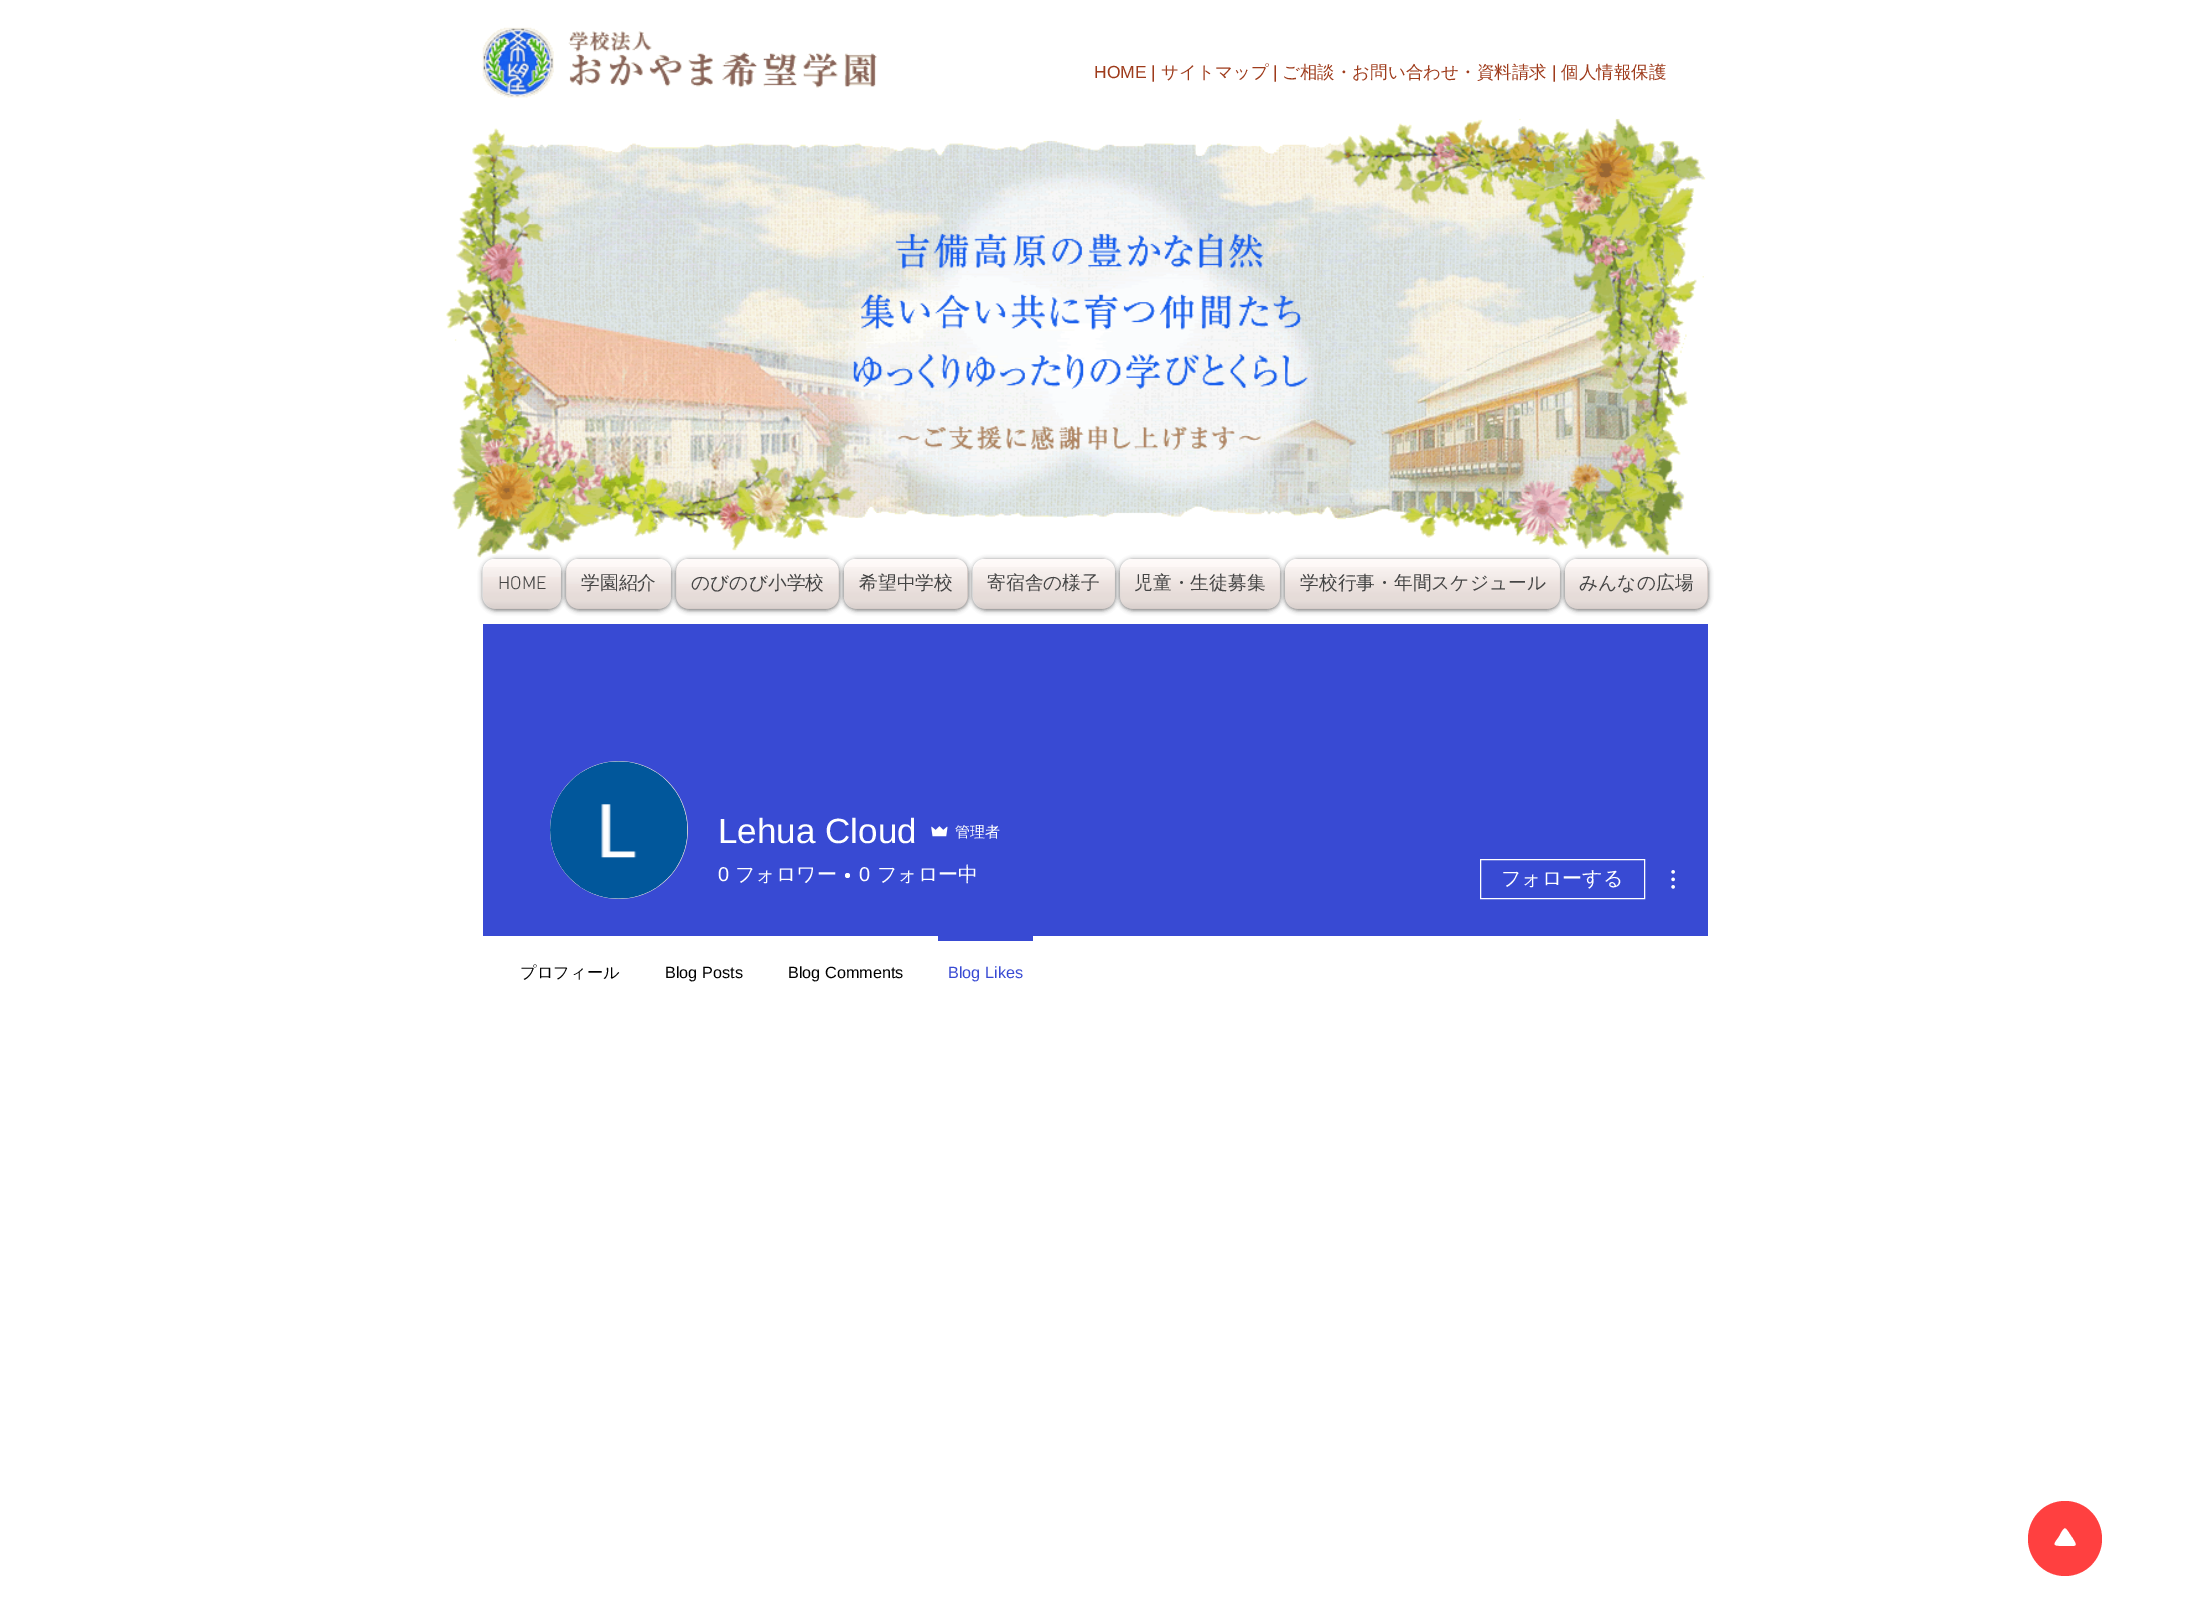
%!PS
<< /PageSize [2189 1613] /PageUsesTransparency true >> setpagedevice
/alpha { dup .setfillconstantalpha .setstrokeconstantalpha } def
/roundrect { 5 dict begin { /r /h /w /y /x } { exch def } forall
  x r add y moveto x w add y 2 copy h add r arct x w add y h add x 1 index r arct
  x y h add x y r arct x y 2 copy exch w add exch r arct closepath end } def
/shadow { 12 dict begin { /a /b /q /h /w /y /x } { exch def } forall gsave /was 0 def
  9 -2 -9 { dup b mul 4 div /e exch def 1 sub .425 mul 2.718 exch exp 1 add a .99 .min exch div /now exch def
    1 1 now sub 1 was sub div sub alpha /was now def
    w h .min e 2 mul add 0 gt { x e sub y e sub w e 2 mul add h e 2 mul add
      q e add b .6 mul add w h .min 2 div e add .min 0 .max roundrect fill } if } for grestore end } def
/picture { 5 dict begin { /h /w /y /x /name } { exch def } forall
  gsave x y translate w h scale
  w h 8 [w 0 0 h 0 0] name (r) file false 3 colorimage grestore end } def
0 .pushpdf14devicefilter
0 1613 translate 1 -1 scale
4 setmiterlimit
1 setgray
0 0 2189 1613 rectfill
(img1.rgb) 482 27 395 71 picture
/LiberationSans-Regular [17.5 0 0 -17.5 0 0] selectfont
0.62 0.231 0.106 setrgbcolor
1094 78 moveto (HOME |) show
/WenQuanYiZenHei-Medium [17.5 0 0 -17.5 0 0] selectfont
1161 78 moveto (サイトマップ) show
/LiberationSans-Regular [17.5 0 0 -17.5 0 0] selectfont
1273 78 moveto (|) show
/WenQuanYiZenHei-Medium [17.5 0 0 -17.5 0 0] selectfont
1282 78 moveto (ご相談・お問い合わせ・資料請求) show
/LiberationSans-Regular [17.5 0 0 -17.5 0 0] selectfont
1552 78 moveto (|) show
/WenQuanYiZenHei-Medium [17.5 0 0 -17.5 0 0] selectfont
1561 78 moveto (個人情報保護) show
(img2.rgb) 446 118 1260 440 picture
gsave
newpath 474 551 moveto 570 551 lineto 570 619 lineto 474 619 lineto closepath 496 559 moveto 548 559 lineto 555 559 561 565 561 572 curveto 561 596 lineto 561 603 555 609 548 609 curveto 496 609 lineto 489 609 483 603 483 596 curveto 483 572 lineto 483 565 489 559 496 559 curveto closepath eoclip newpath
0 setgray
483 560 78 50 13 2.5 0.6 shadow
grestore
0.2 alpha
0.976 0.773 0.706 setrgbcolor
483 559 78 50 13 roundrect fill
1 alpha
(img3.rgb) 483 559 78 18 picture
(img4.rgb) 482 567 79 42 picture
/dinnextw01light-Light [18.75 0 0 -18.75 0 0] selectfont
0.267 setgray
498 589 moveto (HOME) show
gsave
newpath 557 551 moveto 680 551 lineto 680 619 lineto 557 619 lineto closepath 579 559 moveto 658 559 lineto 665 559 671 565 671 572 curveto 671 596 lineto 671 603 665 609 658 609 curveto 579 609 lineto 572 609 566 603 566 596 curveto 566 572 lineto 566 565 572 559 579 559 curveto closepath eoclip newpath
0 setgray
566 560 105 50 13 2.5 0.6 shadow
grestore
0.2 alpha
0.976 0.773 0.706 setrgbcolor
566 559 105 50 13 roundrect fill
1 alpha
(img5.rgb) 566 559 105 25 picture
(img6.rgb) 566 567 105 42 picture
/WenQuanYiZenHei-Medium [18.75 0 0 -18.75 0 0] selectfont
0.267 setgray
581 589 moveto (学園紹介) show
gsave
newpath 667 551 moveto 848 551 lineto 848 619 lineto 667 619 lineto closepath 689 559 moveto 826 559 lineto 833 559 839 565 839 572 curveto 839 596 lineto 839 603 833 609 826 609 curveto 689 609 lineto 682 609 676 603 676 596 curveto 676 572 lineto 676 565 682 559 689 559 curveto closepath eoclip newpath
0 setgray
676 560 163 50 13 2.5 0.6 shadow
grestore
0.2 alpha
0.976 0.773 0.706 setrgbcolor
676 559 163 50 13 roundrect fill
1 alpha
(img7.rgb) 676 559 163 25 picture
(img8.rgb) 676 567 163 42 picture
0.267 setgray
691 589 moveto (のびのび小学校) show
gsave
newpath 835 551 moveto 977 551 lineto 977 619 lineto 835 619 lineto closepath 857 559 moveto 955 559 lineto 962 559 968 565 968 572 curveto 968 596 lineto 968 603 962 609 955 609 curveto 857 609 lineto 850 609 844 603 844 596 curveto 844 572 lineto 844 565 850 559 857 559 curveto closepath eoclip newpath
0 setgray
844 560 124 50 13 2.5 0.6 shadow
grestore
0.2 alpha
0.976 0.773 0.706 setrgbcolor
844 559 124 50 13 roundrect fill
1 alpha
(img9.rgb) 844 559 123 21 picture
(img10.rgb) 844 567 124 42 picture
0.267 setgray
859 589 moveto (希望中学校) show
gsave
newpath 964 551 moveto 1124 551 lineto 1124 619 lineto 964 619 lineto closepath 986 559 moveto 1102 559 lineto 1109 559 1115 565 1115 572 curveto 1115 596 lineto 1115 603 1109 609 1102 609 curveto 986 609 lineto 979 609 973 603 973 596 curveto 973 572 lineto 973 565 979 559 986 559 curveto closepath eoclip newpath
0 setgray
973 560 142 50 13 2.5 0.6 shadow
grestore
0.2 alpha
0.976 0.773 0.706 setrgbcolor
973 559 142 50 13 roundrect fill
1 alpha
(img11.rgb) 973 559 142 21 picture
(img12.rgb) 972 567 143 42 picture
0.267 setgray
987 589 moveto (寄宿舎の様子) show
gsave
newpath 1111 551 moveto 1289 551 lineto 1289 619 lineto 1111 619 lineto closepath 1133 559 moveto 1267 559 lineto 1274 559 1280 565 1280 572 curveto 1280 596 lineto 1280 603 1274 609 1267 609 curveto 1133 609 lineto 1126 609 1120 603 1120 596 curveto 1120 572 lineto 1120 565 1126 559 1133 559 curveto closepath eoclip newpath
0 setgray
1120 560 160 50 13 2.5 0.6 shadow
grestore
0.2 alpha
0.976 0.773 0.706 setrgbcolor
1120 559 160 50 13 roundrect fill
1 alpha
(img13.rgb) 1120 559 160 21 picture
(img14.rgb) 1120 567 160 42 picture
0.267 setgray
1134 589 moveto (児童・生徒募集) show
gsave
newpath 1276 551 moveto 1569 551 lineto 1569 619 lineto 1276 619 lineto closepath 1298 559 moveto 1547 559 lineto 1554 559 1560 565 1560 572 curveto 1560 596 lineto 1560 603 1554 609 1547 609 curveto 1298 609 lineto 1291 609 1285 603 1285 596 curveto 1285 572 lineto 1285 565 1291 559 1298 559 curveto closepath eoclip newpath
0 setgray
1285 560 275 50 13 2.5 0.6 shadow
grestore
0.2 alpha
0.976 0.773 0.706 setrgbcolor
1285 559 275 50 13 roundrect fill
1 alpha
(img15.rgb) 1285 559 275 21 picture
(img16.rgb) 1285 567 275 42 picture
0.267 setgray
1300 589 moveto (学校行事・年間スケジュール) show
gsave
newpath 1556 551 moveto 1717 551 lineto 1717 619 lineto 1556 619 lineto closepath 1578 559 moveto 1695 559 lineto 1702 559 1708 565 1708 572 curveto 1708 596 lineto 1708 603 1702 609 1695 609 curveto 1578 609 lineto 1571 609 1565 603 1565 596 curveto 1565 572 lineto 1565 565 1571 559 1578 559 curveto closepath eoclip newpath
0 setgray
1565 560 143 50 13 2.5 0.6 shadow
grestore
0.2 alpha
0.976 0.773 0.706 setrgbcolor
1565 559 143 50 13 roundrect fill
1 alpha
(img17.rgb) 1565 559 142 21 picture
(img18.rgb) 1565 567 143 42 picture
0.267 setgray
1579 589 moveto (みんなの広場) show
0.22 0.29 0.827 setrgbcolor
483 624 1225 312 rectfill
0.847 setgray
newpath 619 830 69 0 360 arc closepath fill
(img19.rgb) 550 761 138 138 picture
/LiberationSans-Regular [35 0 0 -35 0 0] selectfont
1 setgray
718 843 moveto (Lehua Cloud) show
(img20.rgb) 931 826 17 11 picture
/WenQuanYiZenHei-Medium [15 0 0 -15 0 0] selectfont
955 837 moveto (管理者) show
/LiberationSans-Regular [20 0 0 -20 0 0] selectfont
718 881 moveto (0) show
/WenQuanYiZenHei-Medium [20 0 0 -20 0 0] selectfont
735 881 moveto (フォロワー) show
newpath 847.5 875.5 2.5 0 360 arc closepath fill
/LiberationSans-Regular [20 0 0 -20 0 0] selectfont
859 881 moveto (0) show
/WenQuanYiZenHei-Medium [20 0 0 -20 0 0] selectfont
877 881 moveto (フォロー中) show
1480.5 859.5 164 39 rectstroke
1501 885 moveto (フォローする) show
(img21.rgb) 1671 870 4 19 picture
/WenQuanYiZenHei-Medium [16.25 0 0 -16.25 0 0] selectfont
0 setgray
520 978 moveto (プロフィール) show
/LiberationSans-Regular [16.25 0 0 -16.25 0 0] selectfont
665 978 moveto (Blog Posts) show
788 978 moveto (Blog Comments) show
0.22 0.29 0.827 setrgbcolor
938 936 95 5 rectfill
948 978 moveto (Blog Likes) show
1 0.251 0.251 setrgbcolor
newpath 2065 1501 moveto 2044 1501 2028 1518 2028 1539 curveto 2028 1559 2044 1576 2065 1576 curveto 2086 1576 2102 1559 2102 1539 curveto 2102 1518 2086 1501 2065 1501 curveto closepath 2074 1546 moveto 2059 1546 lineto 2050 1546 2056 1541 2059 1536 curveto 2060 1534 2063 1528 2065 1528 curveto 2067 1528 2071 1536 2073 1538 curveto 2073 1539 2079 1546 2074 1546 curveto closepath fill
.poppdf14devicefilter showpage
